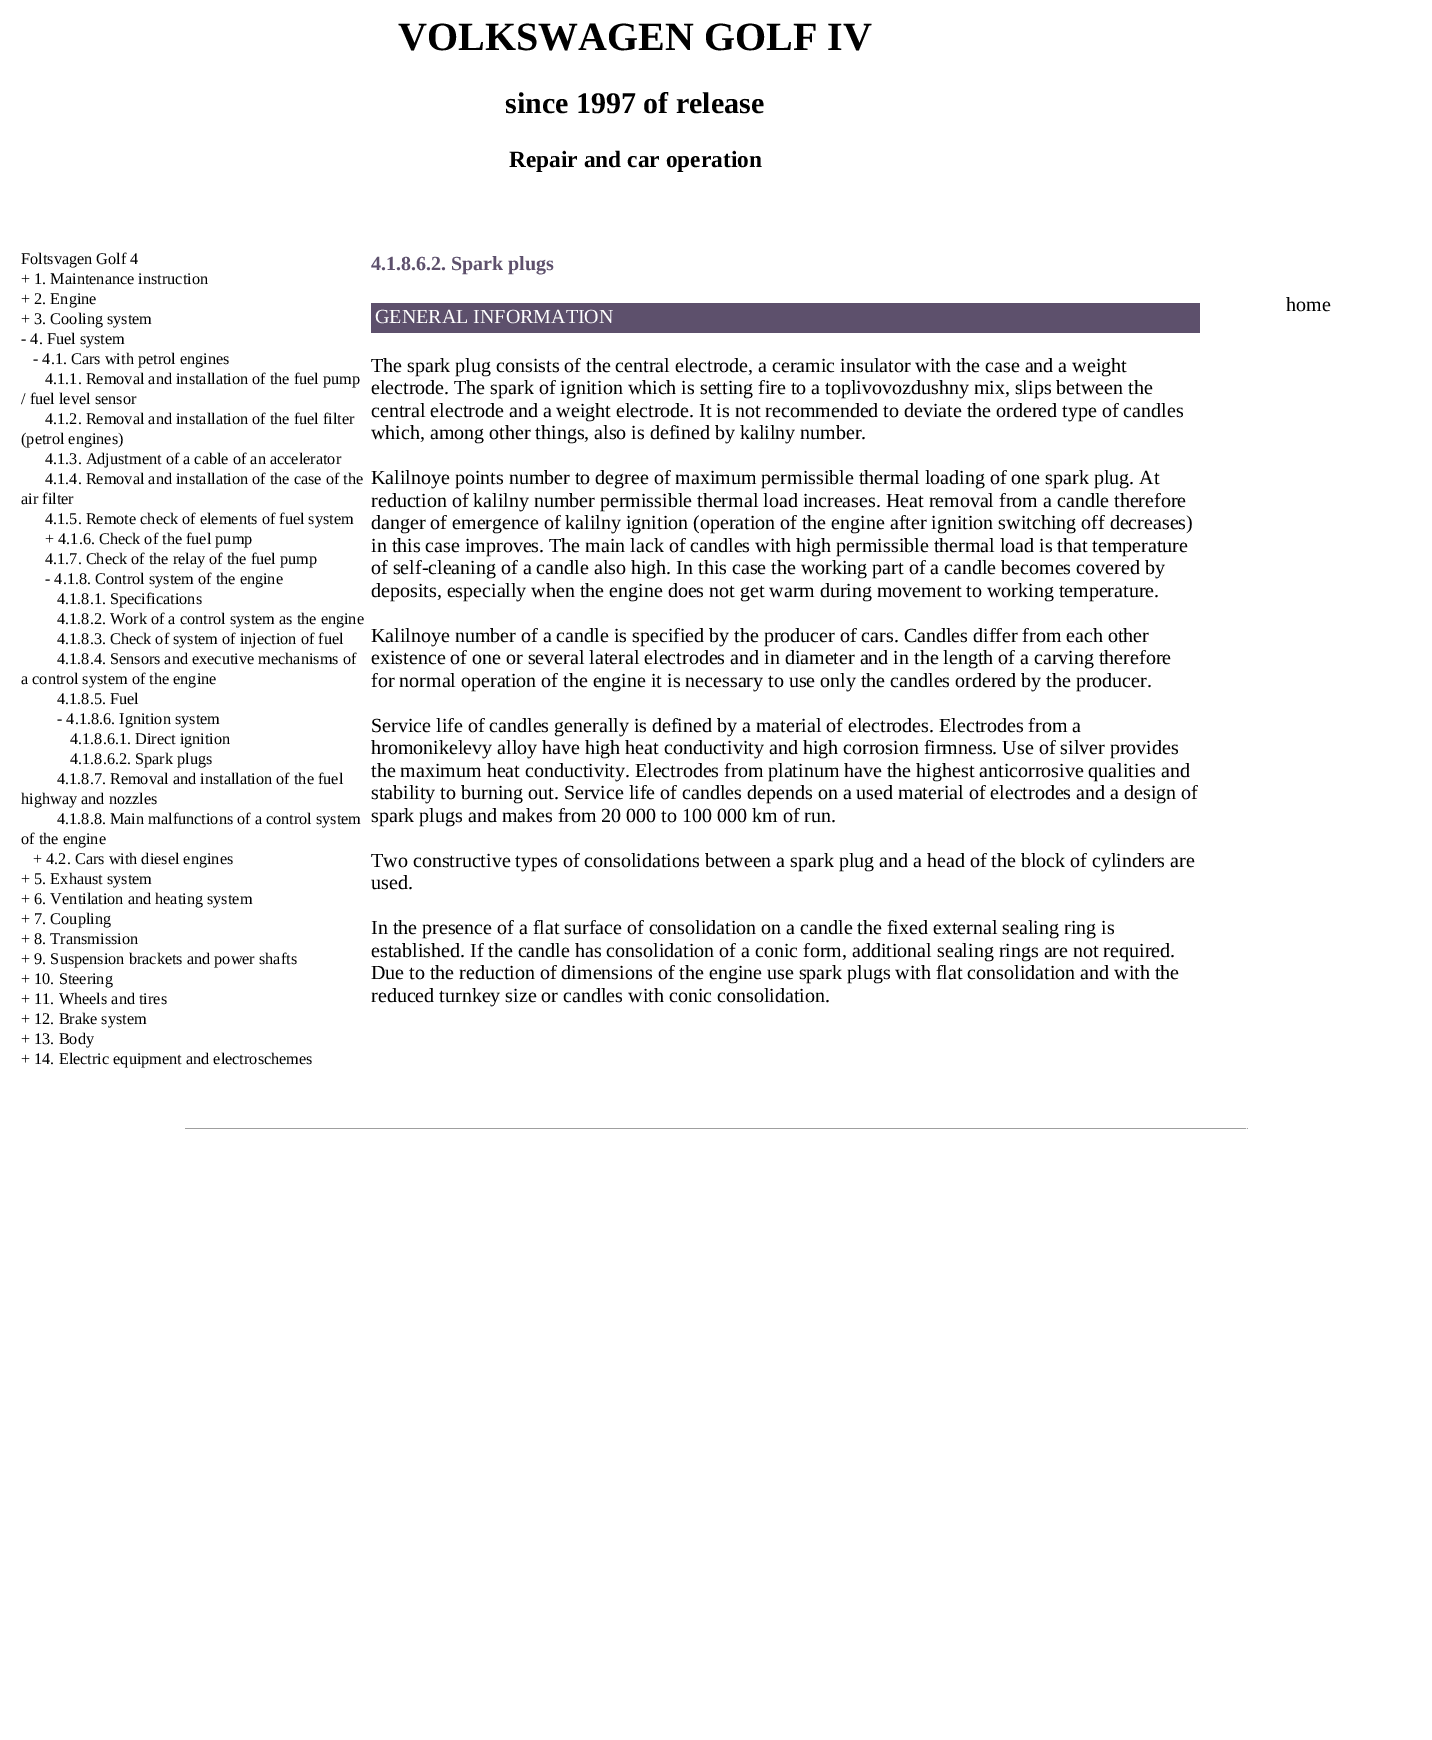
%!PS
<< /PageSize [1432 1740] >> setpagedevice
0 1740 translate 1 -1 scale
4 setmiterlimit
1 setgray
0 0 1432 1740 rectfill
/LiberationSerif-Bold [40 0 0 -40 0 0] selectfont
0 setgray
398 50 moveto (VOLKSWAGEN GOLF IV) show
/LiberationSerif-Bold [30 0 0 -30 0 0] selectfont
505 113 moveto (since 1997 of release) show
/LiberationSerif-Bold [23.4 0 0 -23.4 0 0] selectfont
509 167 moveto (Repair and car operation) show
/LiberationSerif-Regular [16.25 0 0 -16.25 0 0] selectfont
21 264 moveto (Foltsvagen Golf 4) show
21 284 moveto (+ 1. Maintenance instruction) show
21 304 moveto (+ 2. Engine) show
21 324 moveto (+ 3. Cooling system) show
21 344 moveto (- 4. Fuel system) show
33 364 moveto (- 4.1. Cars with petrol engines) show
45 384 moveto (4.1.1. Removal and installation of the fuel pump) show
21 404 moveto (/ fuel level sensor) show
45 424 moveto (4.1.2. Removal and installation of the fuel filter) show
21 444 moveto (\(petrol engines\)) show
45 464 moveto (4.1.3. Adjustment of a cable of an accelerator) show
45 484 moveto (4.1.4. Removal and installation of the case of the) show
21 504 moveto (air filter) show
45 524 moveto (4.1.5. Remote check of elements of fuel system) show
45 544 moveto (+ 4.1.6. Check of the fuel pump) show
45 564 moveto (4.1.7. Check of the relay of the fuel pump) show
45 584 moveto (- 4.1.8. Control system of the engine) show
57 604 moveto (4.1.8.1. Specifications) show
57 624 moveto (4.1.8.2. Work of a control system as the engine) show
57 644 moveto (4.1.8.3. Check of system of injection of fuel) show
57 664 moveto (4.1.8.4. Sensors and executive mechanisms of) show
21 684 moveto (a control system of the engine) show
57 704 moveto (4.1.8.5. Fuel) show
57 724 moveto (- 4.1.8.6. Ignition system) show
70 744 moveto (4.1.8.6.1. Direct ignition) show
70 764 moveto (4.1.8.6.2. Spark plugs) show
57 784 moveto (4.1.8.7. Removal and installation of the fuel) show
21 804 moveto (highway and nozzles) show
57 824 moveto (4.1.8.8. Main malfunctions of a control system) show
21 844 moveto (of the engine) show
33 864 moveto (+ 4.2. Cars with diesel engines) show
21 884 moveto (+ 5. Exhaust system) show
21 904 moveto (+ 6. Ventilation and heating system) show
21 924 moveto (+ 7. Coupling) show
21 944 moveto (+ 8. Transmission) show
21 964 moveto (+ 9. Suspension brackets and power shafts) show
21 984 moveto (+ 10. Steering) show
21 1004 moveto (+ 11. Wheels and tires) show
21 1024 moveto (+ 12. Brake system) show
21 1044 moveto (+ 13. Body) show
21 1064 moveto (+ 14. Electric equipment and electroschemes) show
/LiberationSerif-Bold [20 0 0 -20 0 0] selectfont
0.365 0.314 0.424 setrgbcolor
371 270 moveto (4.1.8.6.2. Spark plugs) show
371 303 829 30 rectfill
/LiberationSerif-Regular [20 0 0 -20 0 0] selectfont
1 setgray
375 323 moveto (GENERAL INFORMATION) show
0 setgray
371 372 moveto (The spark plug consists of the central electrode, a ceramic insulator with the case and a weight) show
371 394 moveto (electrode. The spark of ignition which is setting fire to a toplivovozdushny mix, slips between the) show
371 417 moveto (central electrode and a weight electrode. It is not recommended to deviate the ordered type of candles) show
371 439 moveto (which, among other things, also is defined by kalilny number.) show
371 484 moveto (Kalilnoye points number to degree of maximum permissible thermal loading of one spark plug. At) show
371 507 moveto (reduction of kalilny number permissible thermal load increases. Heat removal from a candle therefore) show
371 529 moveto (danger of emergence of kalilny ignition \(operation of the engine after ignition switching off decreases\)) show
371 552 moveto (in this case improves. The main lack of candles with high permissible thermal load is that temperature) show
371 574 moveto (of self-cleaning of a candle also high. In this case the working part of a candle becomes covered by) show
371 597 moveto (deposits, especially when the engine does not get warm during movement to working temperature.) show
371 642 moveto (Kalilnoye number of a candle is specified by the producer of cars. Candles differ from each other) show
371 664 moveto (existence of one or several lateral electrodes and in diameter and in the length of a carving therefore) show
371 687 moveto (for normal operation of the engine it is necessary to use only the candles ordered by the producer.) show
371 732 moveto (Service life of candles generally is defined by a material of electrodes. Electrodes from a) show
371 754 moveto (hromonikelevy alloy have high heat conductivity and high corrosion firmness. Use of silver provides) show
371 777 moveto (the maximum heat conductivity. Electrodes from platinum have the highest anticorrosive qualities and) show
371 799 moveto (stability to burning out. Service life of candles depends on a used material of electrodes and a design of) show
371 822 moveto (spark plugs and makes from 20 000 to 100 000 km of run.) show
371 867 moveto (Two constructive types of consolidations between a spark plug and a head of the block of cylinders are) show
371 889 moveto (used.) show
371 934 moveto (In the presence of a flat surface of consolidation on a candle the fixed external sealing ring is) show
371 957 moveto (established. If the candle has consolidation of a conic form, additional sealing rings are not required.) show
371 979 moveto (Due to the reduction of dimensions of the engine use spark plugs with flat consolidation and with the) show
371 1002 moveto (reduced turnkey size or candles with conic consolidation.) show
1286 311 moveto (home) show
0.624 setgray
185 1128 1063 1 rectfill
0.933 setgray
1246 1128 1 1 rectfill
showpage
